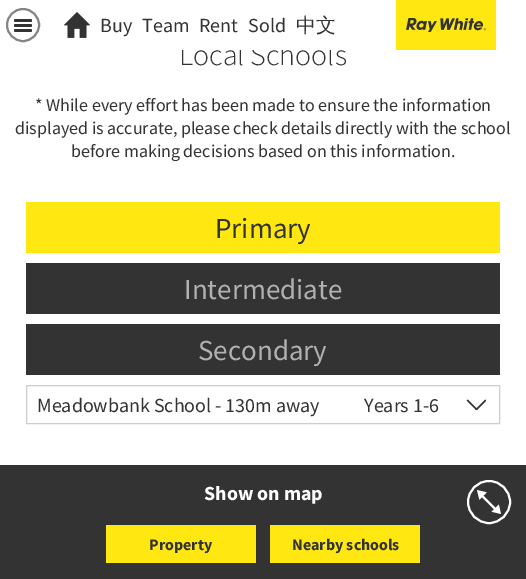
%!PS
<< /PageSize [526 579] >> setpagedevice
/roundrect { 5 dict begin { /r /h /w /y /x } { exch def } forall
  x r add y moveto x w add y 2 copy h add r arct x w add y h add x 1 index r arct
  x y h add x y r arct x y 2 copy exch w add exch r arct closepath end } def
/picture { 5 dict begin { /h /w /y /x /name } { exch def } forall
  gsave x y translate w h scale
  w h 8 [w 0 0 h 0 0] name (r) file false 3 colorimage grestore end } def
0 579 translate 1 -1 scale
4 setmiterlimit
1 setgray
0 0 526 579 rectfill
/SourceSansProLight-Light [30 0 0 -30 0 0] selectfont
0.2 setgray
179 65 moveto (Local Schools) show
1 setgray
182 43 150 7 rectfill
0.525 0.514 0.518 setrgbcolor
2 setlinewidth
newpath 23 25 16 0 360 arc closepath stroke
0.2 setgray
14 19 18 3 1.5 roundrect fill
14 24 18 3 1.5 roundrect fill
14 29 18 3 1.5 roundrect fill
(img1.rgb) 64 12 26 26 picture
/SourceSansPro-Regular [20 0 0 -20 0 0] selectfont
100 32 moveto (Buy) show
142 32 moveto (Team) show
199 32 moveto (Rent) show
248 32 moveto (Sold) show
/WenQuanYiZenHei-Medium [20 0 0 -20 0 0] selectfont
296 32 moveto (中文) show
1 0.91 0.067 setrgbcolor
396 0 100 50 rectfill
(img2.rgb) 406 18 80 14 picture
/SourceSansPro-Regular [18 0 0 -18 0 0] selectfont
0.2 setgray
35 111 moveto (* While every effort has been made to ensure the information) show
15 134 moveto (displayed is accurate, please check details directly with the school) show
71 157 moveto (before making decisions based on this information.) show
1 0.91 0.067 setrgbcolor
26 202 474 51 rectfill
/SourceSansPro-Regular [29 0 0 -29 0 0] selectfont
0.2 setgray
215 238 moveto (Primary) show
26 263 474 51 rectfill
0.694 setgray
184 299 moveto (Intermediate) show
0.2 setgray
26 324 474 51 rectfill
0.694 setgray
198 360 moveto (Secondary) show
0.804 setgray
1 setlinewidth
26.5 385.5 473 38 rectstroke
/SourceSansPro-Regular [20 0 0 -20 0 0] selectfont
0.2 setgray
37 412 moveto (Meadowbank School - 130m away) show
364 412 moveto (Years 1-6) show
(img3.rgb) 466 399 20 11 picture
0 465 526 114 rectfill
/SourceSansPro-Bold [20 0 0 -20 0 0] selectfont
1 setgray
204 500 moveto (Show on map) show
2 setlinewidth
newpath 489 502 21 0 360 arc closepath stroke
(img4.rgb) 477 490 24 24 picture
1 0.91 0.067 setrgbcolor
106 525 150 38 rectfill
/SourceSansPro-Bold [16 0 0 -16 0 0] selectfont
0.2 setgray
149 550 moveto (Property) show
1 0.91 0.067 setrgbcolor
270 525 150 38 rectfill
0.2 setgray
292 550 moveto (Nearby schools) show
showpage
